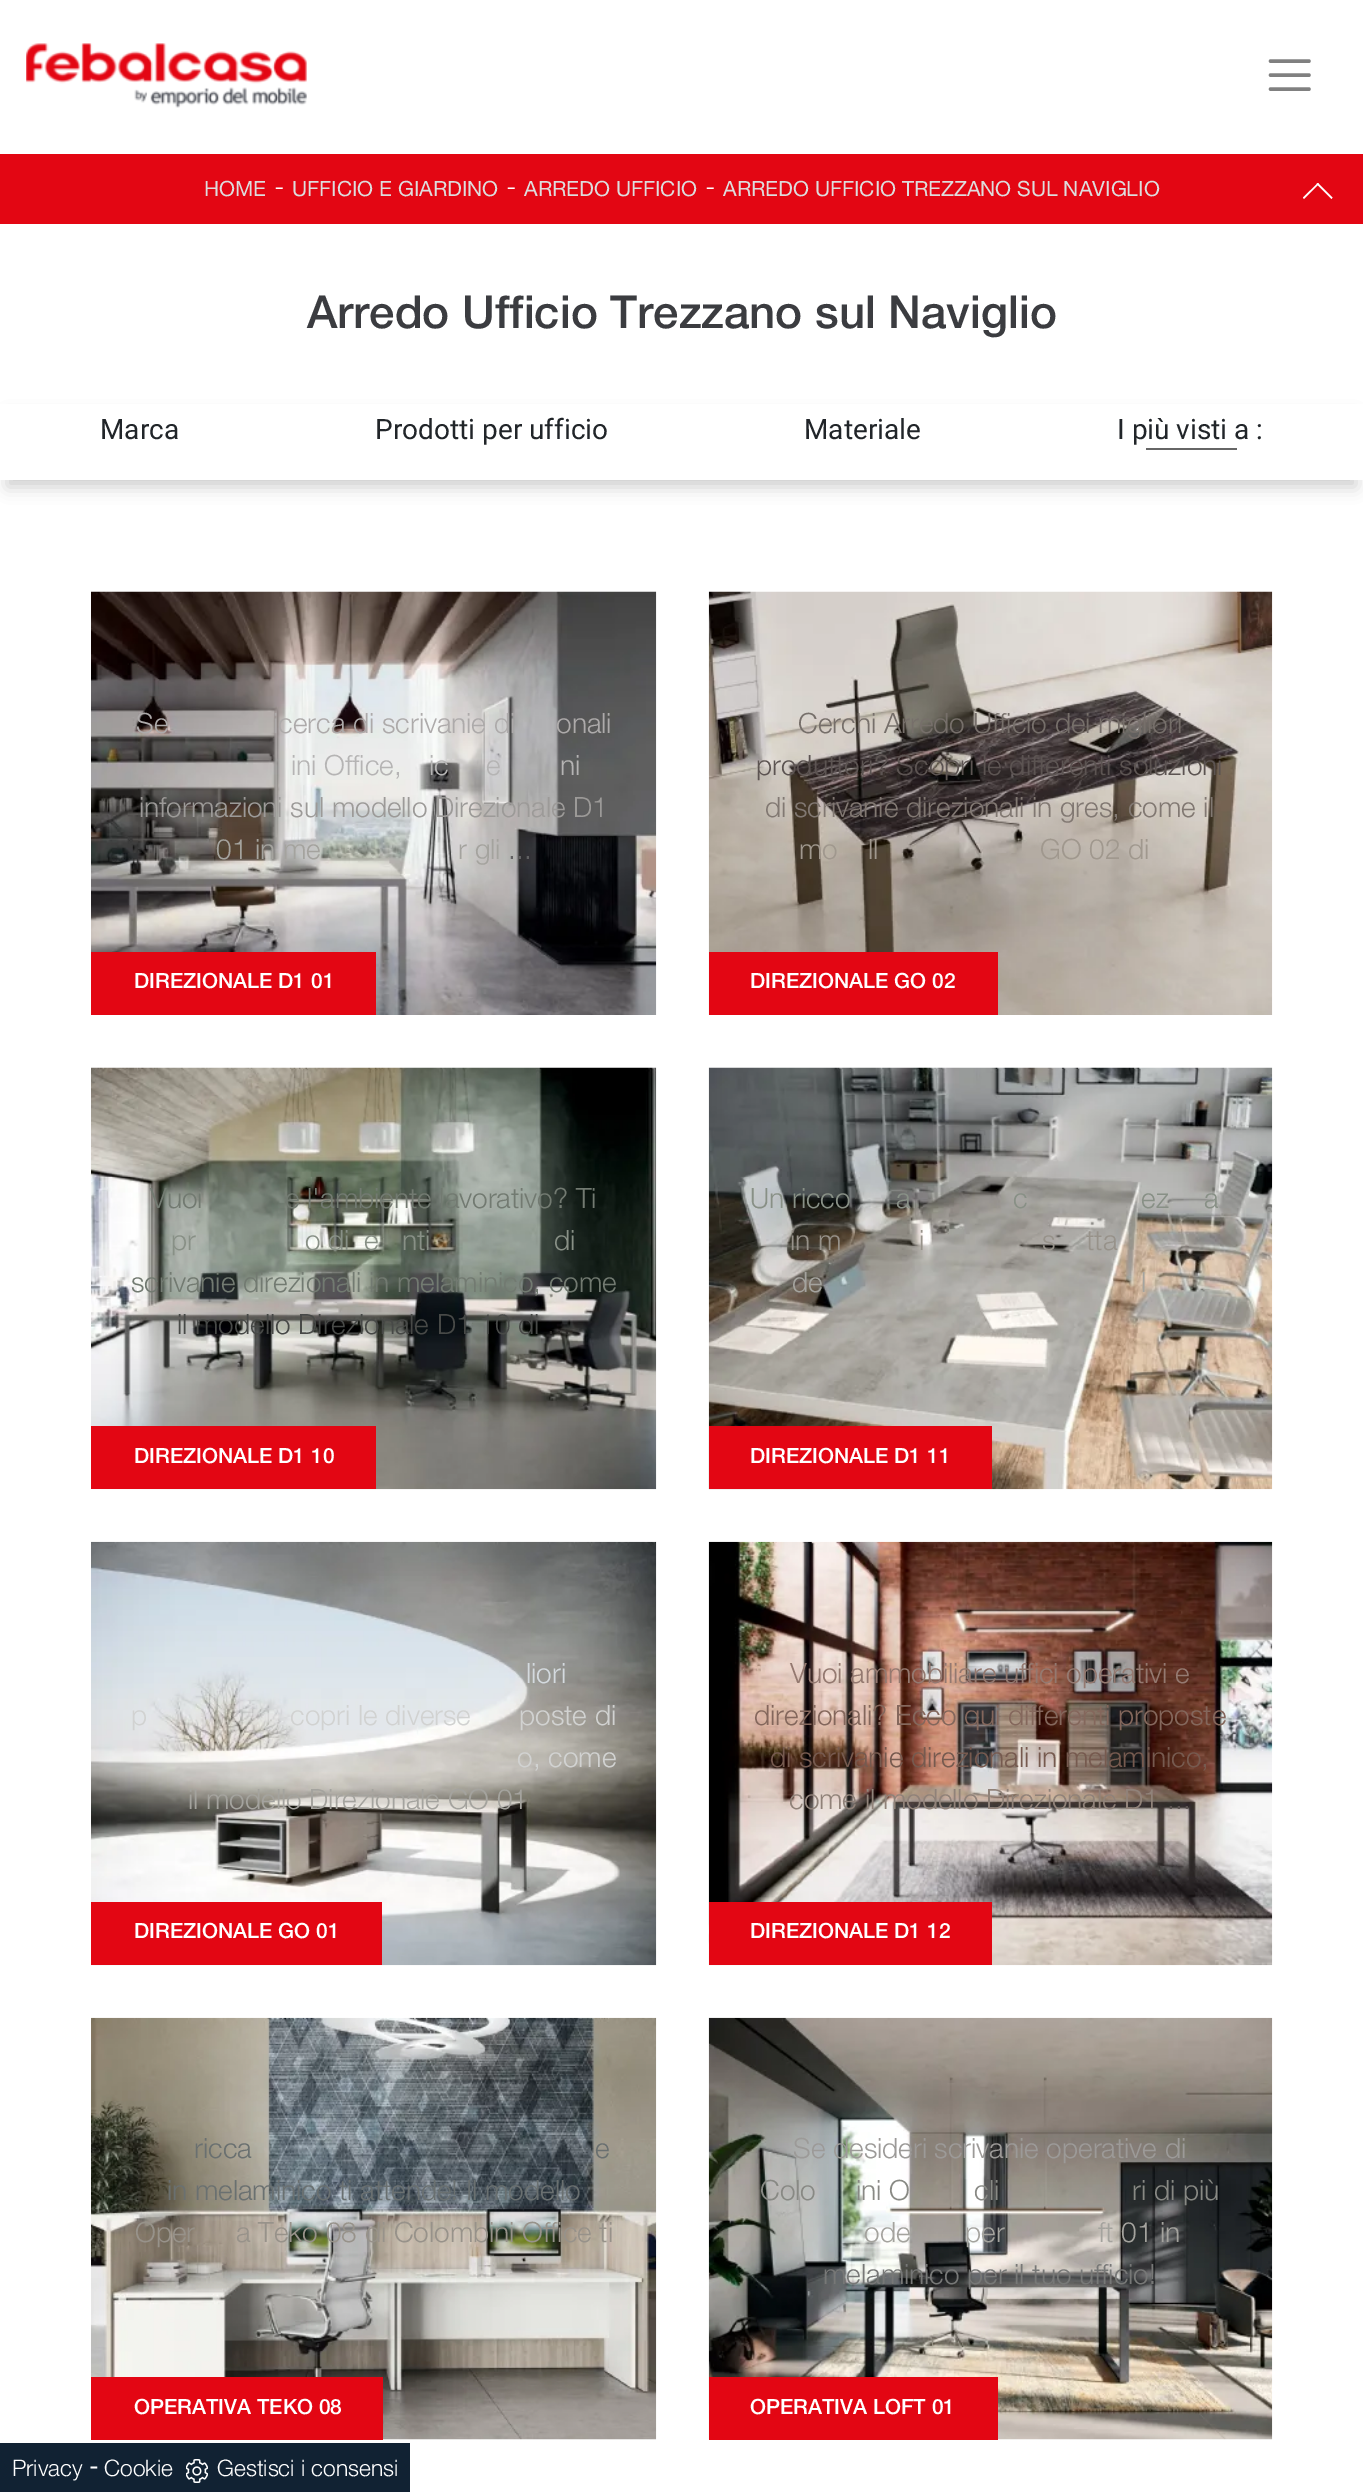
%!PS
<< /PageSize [1363 2492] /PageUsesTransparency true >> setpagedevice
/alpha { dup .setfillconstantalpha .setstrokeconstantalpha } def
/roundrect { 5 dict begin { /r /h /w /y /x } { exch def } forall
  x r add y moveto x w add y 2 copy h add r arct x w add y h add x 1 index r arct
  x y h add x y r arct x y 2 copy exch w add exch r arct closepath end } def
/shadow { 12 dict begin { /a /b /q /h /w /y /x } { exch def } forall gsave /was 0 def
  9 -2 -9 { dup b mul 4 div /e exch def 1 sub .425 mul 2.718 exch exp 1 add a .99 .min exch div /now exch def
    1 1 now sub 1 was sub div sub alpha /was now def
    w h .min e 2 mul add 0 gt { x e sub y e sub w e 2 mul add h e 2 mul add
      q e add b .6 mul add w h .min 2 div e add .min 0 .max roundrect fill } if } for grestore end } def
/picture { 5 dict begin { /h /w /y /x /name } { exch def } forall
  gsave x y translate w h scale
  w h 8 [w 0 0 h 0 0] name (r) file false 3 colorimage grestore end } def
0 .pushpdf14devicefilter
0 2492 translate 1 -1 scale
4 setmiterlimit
1 setgray
0 0 1363 2492 rectfill
(img1.rgb) 26 43 281 65 picture
0.502 setgray
3.5 setlinewidth
1 setlinecap
newpath 1270.5 61 moveto 1309 61 lineto 1270.5 75 moveto 1309 75 lineto 1270.5 89 moveto 1309 89 lineto stroke
0.89 0.024 0.075 setrgbcolor
0 154 1363 70 rectfill
/HelveticaNeue-Regular [21 0 0 -21 0 0] selectfont
0.867 setgray
204 196 moveto (HOME) show
/HelveticaNeue-Light [28 0 0 -28 0 0] selectfont
1 setgray
274 196 moveto (-) show
/HelveticaNeue-Regular [21 0 0 -21 0 0] selectfont
0.867 setgray
292 196 moveto (UFFICIO E GIARDINO) show
/HelveticaNeue-Light [28 0 0 -28 0 0] selectfont
1 setgray
506 196 moveto (-) show
/HelveticaNeue-Regular [21 0 0 -21 0 0] selectfont
0.867 setgray
524 196 moveto (ARREDO UFFICIO) show
/HelveticaNeue-Light [28 0 0 -28 0 0] selectfont
1 setgray
705 196 moveto (-) show
/HelveticaNeue-Regular [21 0 0 -21 0 0] selectfont
0.867 setgray
723 196 moveto (ARREDO UFFICIO TREZZANO SUL NAVIGLIO) show
1 setgray
newpath 1318 183 moveto 1332.5 197.5 lineto 1331.5 199 lineto 1316.5 184 lineto closepath fill
newpath 1318 183 moveto 1319 184 lineto 1304 199 lineto 1303 197.5 lineto closepath fill
/HelveticaNeue-Medium [45.5 0 0 -45.5 0 0] selectfont
0.231 0.235 0.251 setrgbcolor
307 328 moveto (Arredo Ufficio Trezzano sul Naviglio) show
0 setgray
7 417 1349 70 0 8 0.19 shadow
1 setgray
0 404 1363 76 rectfill
/Roboto-Regular [28 0 0 -28 0 0] selectfont
0.129 0.145 0.161 setrgbcolor
100 439 moveto (Marca) show
375 439 moveto (Prodotti per ufficio) show
804 439 moveto (Materiale) show
1117 439 moveto (I più visti a :) show
0.4 setgray
1146 448 91 2 rectfill
(img2.rgb) 91 591 566 424 picture
/HelveticaNeue-Light [28 0 0 -28 0 0] selectfont
0.678 0.667 0.667 setrgbcolor
136 733 moveto (Se) show
273 733 moveto (icerca di scrivanie di) show
556 733 moveto (onali) show
0.71 0.706 0.706 setrgbcolor
291 775 moveto (ini Office,) show
429 775 moveto (ic) show
486 775 moveto (e) show
560 775 moveto (ni) show
0.612 0.604 0.596 setrgbcolor
139 817 moveto (informazioni sul modello Direzionale D1) show
0.643 0.639 0.62 setrgbcolor
216 859 moveto (01 in me) show
458 859 moveto (r gli) show
0.376 0.376 0.38 setrgbcolor
508 859 moveto (...) show
0.89 0.024 0.075 setrgbcolor
91 952 285 63 rectfill
/HelveticaNeue-Medium [21 0 0 -21 0 0] selectfont
1 setgray
134 988 moveto (DIREZIONALE D1 01) show
(img3.rgb) 708 591 565 424 picture
/HelveticaNeue-Light [28 0 0 -28 0 0] selectfont
0.463 0.435 0.416 setrgbcolor
798 733 moveto (Cerchi Arredo Ufficio dei migliori) show
0.361 0.329 0.322 setrgbcolor
756 775 moveto (produttori? Scopri le differenti soluzioni) show
0.506 0.471 0.447 setrgbcolor
765 817 moveto (di scrivanie direzionali in gres, come il) show
0.627 0.596 0.557 setrgbcolor
799 859 moveto (mo) show
868 859 moveto (ll) show
1040 859 moveto (GO 02 di) show
0.89 0.024 0.075 setrgbcolor
709 952 289 63 rectfill
/HelveticaNeue-Medium [21 0 0 -21 0 0] selectfont
1 setgray
750 988 moveto (DIREZIONALE GO 02) show
(img4.rgb) 91 1067 566 423 picture
/HelveticaNeue-Light [28 0 0 -28 0 0] selectfont
0.447 0.478 0.443 setrgbcolor
150 1208 moveto (Vuoi) show
285 1208 moveto (e l'ambiente lavorativo? Ti) show
0.533 0.565 0.525 setrgbcolor
171 1250 moveto (pr) show
305 1250 moveto (o di) show
364 1250 moveto (e) show
402 1250 moveto (nti) show
554 1250 moveto (di) show
0.447 0.478 0.443 setrgbcolor
131 1292 moveto (scrivanie direzionali in melaminico, come) show
0.278 0.286 0.278 setrgbcolor
177 1334 moveto (il modello Direzionale D1 10 di) show
0.165 0.161 0.153 setrgbcolor
547 1334 moveto (...) show
0.89 0.024 0.075 setrgbcolor
91 1426 285 63 rectfill
/HelveticaNeue-Medium [21 0 0 -21 0 0] selectfont
1 setgray
134 1463 moveto (DIREZIONALE D1 10) show
(img5.rgb) 708 1067 565 423 picture
/HelveticaNeue-Light [28 0 0 -28 0 0] selectfont
0.533 0.565 0.525 setrgbcolor
750 1208 moveto (Un ricco) show
896 1208 moveto (a) show
1013 1208 moveto (c) show
1141 1208 moveto (ez) show
1204 1208 moveto (a) show
0.592 0.573 0.541 setrgbcolor
790 1250 moveto (in m) show
919 1250 moveto (i) show
1042 1250 moveto (s) show
1086 1250 moveto (tta) show
0.643 0.639 0.62 setrgbcolor
792 1292 moveto (de) show
1141 1292 moveto (l) show
0.89 0.024 0.075 setrgbcolor
709 1426 283 63 rectfill
/HelveticaNeue-Medium [21 0 0 -21 0 0] selectfont
1 setgray
750 1463 moveto (DIREZIONALE D1 11) show
(img6.rgb) 91 1541 566 425 picture
/HelveticaNeue-Light [28 0 0 -28 0 0] selectfont
0.831 0.855 0.875 setrgbcolor
526 1683 moveto (liori) show
0.82 0.824 0.82 setrgbcolor
131 1725 moveto (p) show
290 1725 moveto (copri le diverse) show
519 1725 moveto (poste di) show
517 1767 moveto (o, come) show
0.643 0.639 0.62 setrgbcolor
188 1809 moveto (il modello Direzionale GO 01) show
0.89 0.024 0.075 setrgbcolor
91 1902 291 63 rectfill
/HelveticaNeue-Medium [21 0 0 -21 0 0] selectfont
1 setgray
134 1938 moveto (DIREZIONALE GO 01) show
(img7.rgb) 708 1541 565 425 picture
/HelveticaNeue-Light [28 0 0 -28 0 0] selectfont
0.58 0.475 0.439 setrgbcolor
790 1683 moveto (Vuoi ammobiliare uffici operativi e) show
0.518 0.404 0.361 setrgbcolor
754 1725 moveto (direzionali? Ecco qui differenti proposte) show
0.463 0.353 0.31 setrgbcolor
770 1767 moveto (di scrivanie direzionali in melaminico,) show
0.565 0.51 0.475 setrgbcolor
789 1809 moveto (come il modello Direzionale D1) show
0.361 0.329 0.322 setrgbcolor
1167 1809 moveto (...) show
0.89 0.024 0.075 setrgbcolor
709 1902 283 63 rectfill
/HelveticaNeue-Medium [21 0 0 -21 0 0] selectfont
1 setgray
750 1938 moveto (DIREZIONALE D1 12) show
(img8.rgb) 91 2017 566 423 picture
/HelveticaNeue-Light [28 0 0 -28 0 0] selectfont
0.416 0.439 0.439 setrgbcolor
194 2158 moveto (ricca) show
595 2158 moveto (e) show
167 2200 moveto (in melaminico ti attende! Il modello) show
0.592 0.573 0.541 setrgbcolor
135 2242 moveto (Oper) show
236 2242 moveto (a Teko 08 di Colombini Office ti) show
0.89 0.024 0.075 setrgbcolor
91 2377 292 63 rectfill
/HelveticaNeue-Medium [21 0 0 -21 0 0] selectfont
1 setgray
134 2414 moveto (OPERATIVA TEKO 08) show
(img9.rgb) 708 2017 565 423 picture
/HelveticaNeue-Light [28 0 0 -28 0 0] selectfont
0.612 0.604 0.596 setrgbcolor
793 2158 moveto (Se desideri scrivanie operative di) show
0.533 0.537 0.518 setrgbcolor
760 2200 moveto (Colo) show
856 2200 moveto (ini O) show
974 2200 moveto (cli) show
1132 2200 moveto (ri di più) show
0.643 0.639 0.62 setrgbcolor
864 2242 moveto (ode) show
965 2242 moveto (per) show
1098 2242 moveto (ft 01 in) show
0.467 0.471 0.467 setrgbcolor
823 2284 moveto (melaminico per il tuo ufficio!) show
0.89 0.024 0.075 setrgbcolor
709 2377 289 63 rectfill
/HelveticaNeue-Medium [21 0 0 -21 0 0] selectfont
1 setgray
750 2414 moveto (OPERATIVA LOFT 01) show
0.067 0.133 0.2 setrgbcolor
0 2443 410 49 rectfill
/HelveticaNeue-Light [22.75 0 0 -22.75 0 0] selectfont
1 setgray
12 2476 moveto (Privacy) show
/Roboto-Regular [28 0 0 -28 0 0] selectfont
90 2476 moveto (-) show
/HelveticaNeue-Light [22.75 0 0 -22.75 0 0] selectfont
104 2476 moveto (Cookie) show
(img10.rgb) 186 2459 22 24 picture
217 2476 moveto (Gestisci i consensi) show
.poppdf14devicefilter showpage
